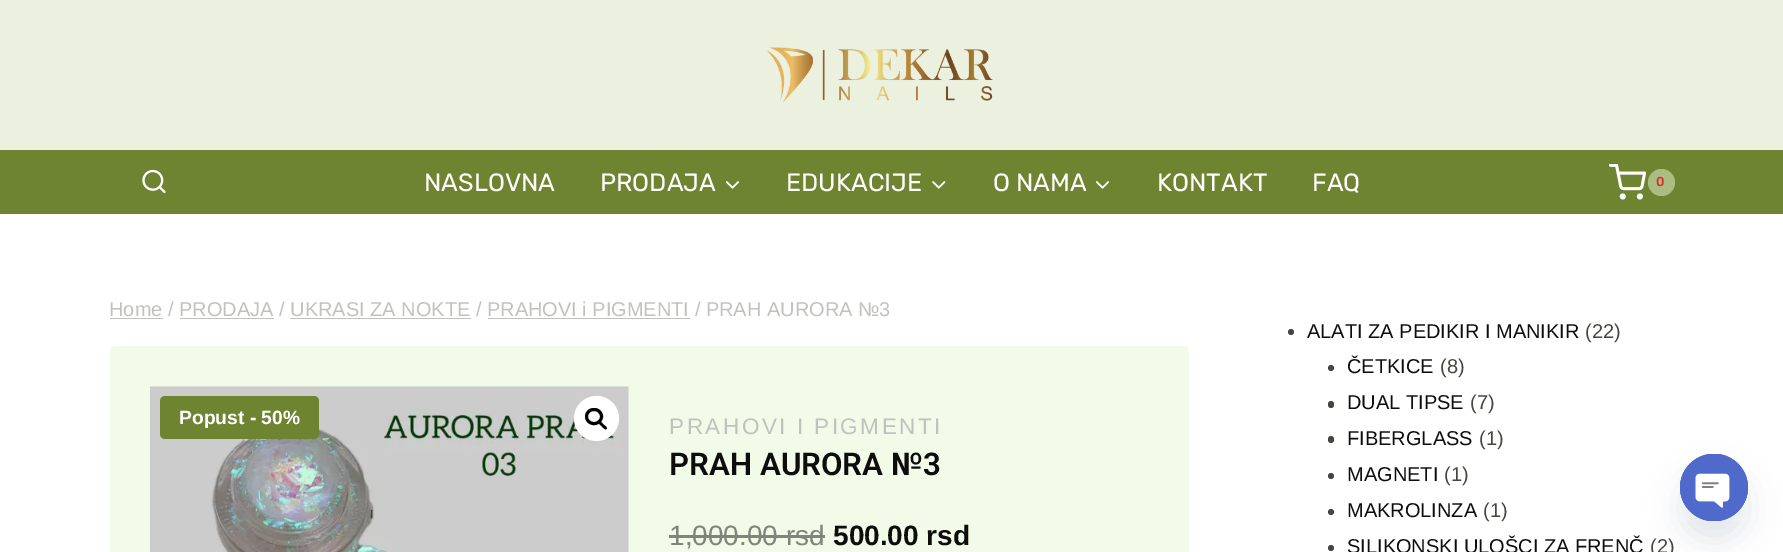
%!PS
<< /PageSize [1783 552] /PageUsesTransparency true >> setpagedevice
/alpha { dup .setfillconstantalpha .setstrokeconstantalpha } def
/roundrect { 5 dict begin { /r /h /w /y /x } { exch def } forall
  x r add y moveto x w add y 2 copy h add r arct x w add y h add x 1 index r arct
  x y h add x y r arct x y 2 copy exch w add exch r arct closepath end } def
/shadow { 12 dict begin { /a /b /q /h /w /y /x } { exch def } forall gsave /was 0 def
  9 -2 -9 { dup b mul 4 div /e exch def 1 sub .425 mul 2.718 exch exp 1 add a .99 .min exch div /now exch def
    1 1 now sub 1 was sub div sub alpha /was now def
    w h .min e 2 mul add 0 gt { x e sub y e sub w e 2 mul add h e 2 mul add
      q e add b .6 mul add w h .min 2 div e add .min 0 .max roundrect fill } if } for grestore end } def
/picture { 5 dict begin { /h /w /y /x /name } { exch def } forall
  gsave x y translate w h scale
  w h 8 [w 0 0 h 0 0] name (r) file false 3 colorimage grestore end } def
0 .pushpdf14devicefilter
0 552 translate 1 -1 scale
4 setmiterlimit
1 setgray
0 0 1783 552 rectfill
0.922 0.941 0.875 setrgbcolor
0 0 1783 150 rectfill
0.431 0.518 0.188 setrgbcolor
0 150 1783 64 rectfill
(img1.rgb) 767 47 226 56 picture
(img2.rgb) 142 169 24 25 picture
/Rubik-Regular [25 0 0 -25 0 0] selectfont
1 setgray
424 191 moveto (NASLOVNA) show
600 191 moveto (PRODAJA) show
(img3.rgb) 726 181 13 8 picture
786 191 moveto (EDUKACIJE) show
(img4.rgb) 932 181 14 8 picture
993 191 moveto (O NAMA) show
(img3.rgb) 1096 181 13 8 picture
1157 191 moveto (KONTAKT) show
1312 191 moveto (FAQ) show
(img5.rgb) 1609 164 37 36 picture
0.663 0.745 0.502 setrgbcolor
newpath 1661.5 182.5 13.5 0 360 arc closepath fill
/Rubik-Medium [13 0 0 -13 0 0] selectfont
0.859 0.169 0.184 setrgbcolor
1656 186 moveto (0) show
/LiberationSans-Regular [20 0 0 -20 0 0] selectfont
0.753 0.761 0.745 setrgbcolor
109 316 moveto (Home / PRODAJA / UKRASI ZA NOKTE / PRAHOVI i PIGMENTI / PRAH AURORA №3) show
110 318 53 1 rectfill
180 318 94 1 rectfill
290 318 181 1 rectfill
488 318 202 1 rectfill
0.949 0.984 0.91 setrgbcolor
110 346 1079 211 5 roundrect fill
(img6.rgb) 150 386 479 166 picture
1 setgray
newpath 596.5 418.5 22.5 0 360 arc closepath fill
0 setgray
3 setlinewidth
586.5 409.5 15 14 7 roundrect stroke
newpath 599.5 422 moveto 600.5 420.5 603 424 603.5 424.5 curveto 604.5 425.5 608 427.5 606.5 429 curveto 605 430.5 602.5 427 602 426.5 curveto 601 425.5 598 423.5 599.5 422 curveto closepath fill
0.431 0.518 0.188 setrgbcolor
160 396 159 43 5 roundrect fill
/LiberationSans-Bold [19.25 0 0 -19.25 0 0] selectfont
1 setgray
179 424 moveto (Popust - 50%) show
/LiberationSans-Regular [22.5 0 0 -22.5 0 0] selectfont
0.753 0.761 0.745 setrgbcolor
669 434 moveto 2.5 0 (PRAHOVI I PIGMENTI) ashow
/Roboto-SemiBold [31.25 0 0 -31.25 0 0] selectfont
0.051 setgray
669 475 moveto (PRAH AURORA №3) show
/LiberationSans-Regular [28 0 0 -28 0 0] selectfont
0.502 0.518 0.482 setrgbcolor
669 545 moveto (1,000.00 rsd) show
669 535 156 3 rectfill
/LiberationSans-Bold [28 0 0 -28 0 0] selectfont
0.051 setgray
833 545 moveto (500.00 rsd) show
0.282 0.275 0.251 setrgbcolor
newpath 1291 332 3 0 360 arc closepath fill
/LiberationSans-Regular [20 0 0 -20 0 0] selectfont
0.051 setgray
1307 338 moveto (ALATI ZA PEDIKIR I MANIKIR) show
0.282 0.275 0.251 setrgbcolor
1585 338 moveto (\(22\)) show
newpath 1331 368 3 0 360 arc closepath fill
0.051 setgray
1347 373 moveto (ČETKICE) show
0.282 0.275 0.251 setrgbcolor
1440 373 moveto (\(8\)) show
1328 401 6 7 3 roundrect fill
0.051 setgray
1347 409 moveto (DUAL TIPSE) show
0.282 0.275 0.251 setrgbcolor
1470 409 moveto (\(7\)) show
1328 436 6 7 3 roundrect fill
0.051 setgray
1347 445 moveto (FIBERGLASS) show
0.282 0.275 0.251 setrgbcolor
1479 445 moveto (\(1\)) show
newpath 1331 476 3 0 360 arc closepath fill
0.051 setgray
1347 481 moveto (MAGNETI) show
0.282 0.275 0.251 setrgbcolor
1444 481 moveto (\(1\)) show
newpath 1331 512 3 0 360 arc closepath fill
0.051 setgray
1347 517 moveto (MAKROLINZA) show
0.282 0.275 0.251 setrgbcolor
1483 517 moveto (\(1\)) show
newpath 1331 548 3 0 360 arc closepath fill
0.051 setgray
1347 553 moveto (SILIKONSKI ULOŠCI ZA FRENČ) show
0.282 0.275 0.251 setrgbcolor
1650 553 moveto (\(2\)) show
0.286 0.408 0.494 setrgbcolor
1680 474 68 67 33.5 15 0.16 shadow
(img7.rgb) 1680 454 68 67 picture
.poppdf14devicefilter showpage
